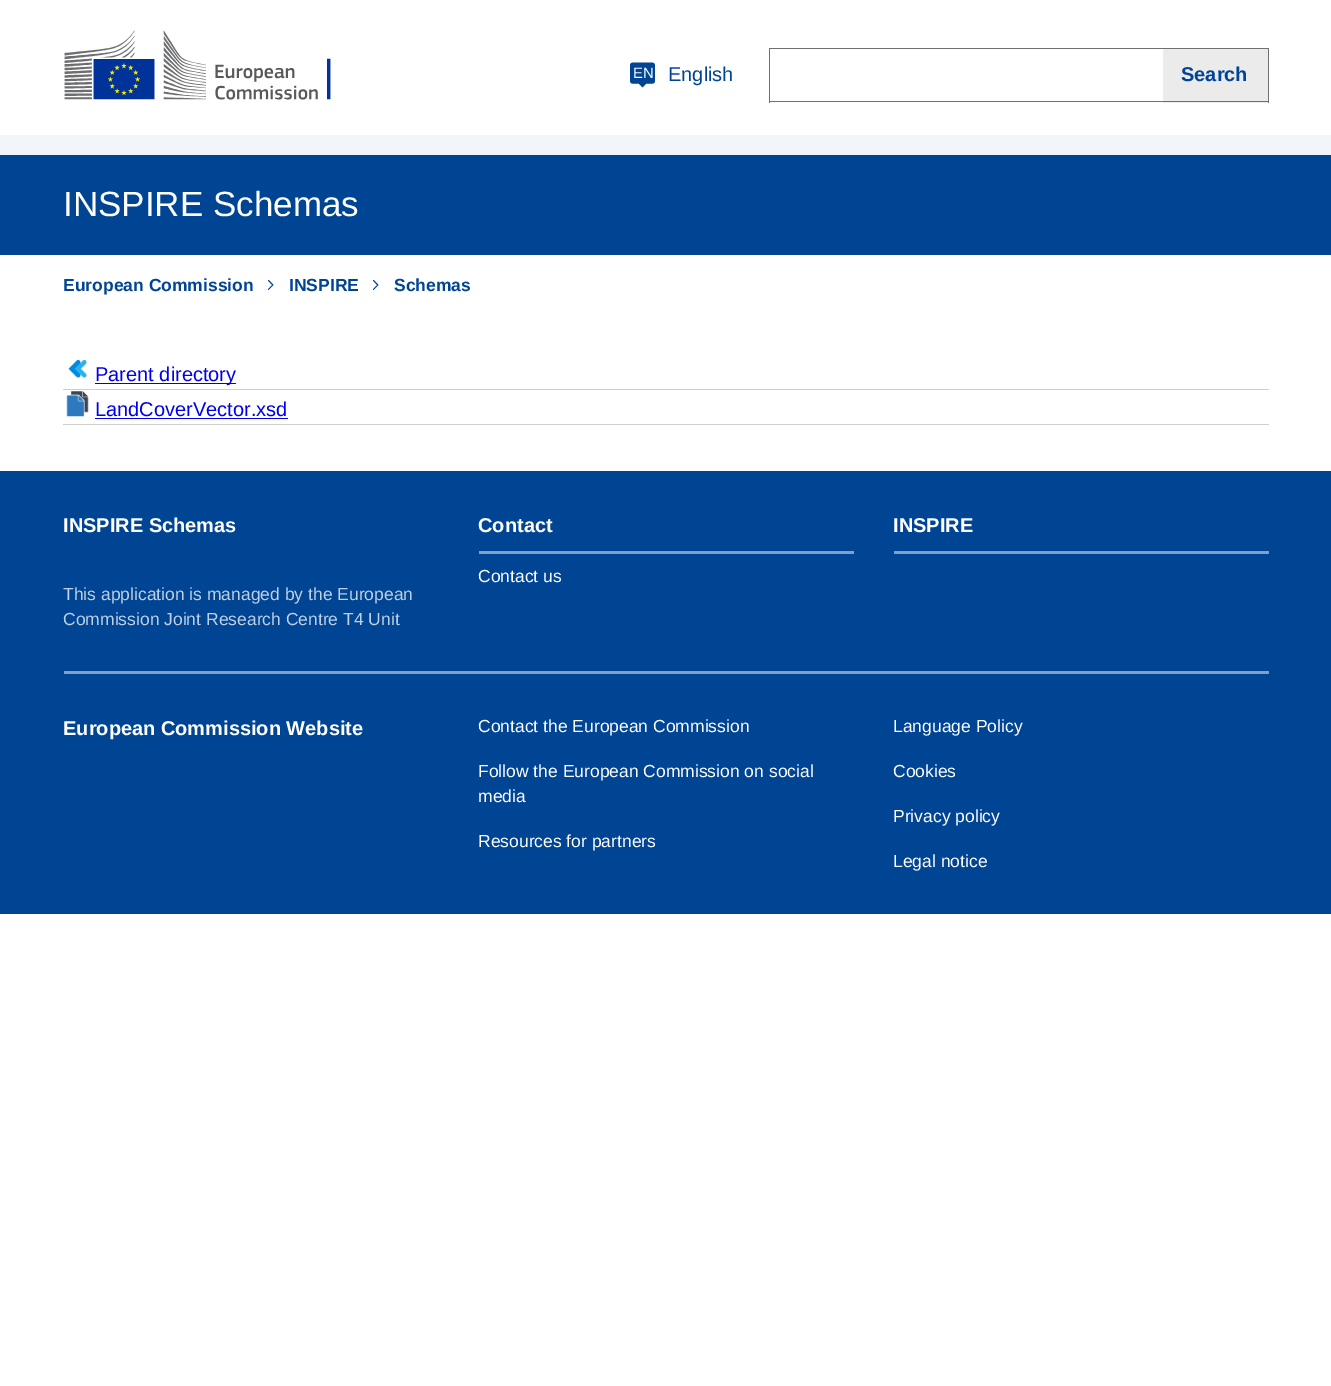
%!PS
<< /PageSize [1331 1386] >> setpagedevice
/picture { 5 dict begin { /h /w /y /x /name } { exch def } forall
  gsave x y translate w h scale
  w h 8 [w 0 0 h 0 0] name (r) file false 3 colorimage grestore end } def
0 1386 translate 1 -1 scale
4 setmiterlimit
1 setgray
0 0 1331 1386 rectfill
(img1.rgb) 64 30 267 70 picture
(img2.rgb) 630 62 25 26 picture
/LiberationSans-Regular [15 0 0 -15 0 0] selectfont
633 78 moveto (EN) show
/LiberationSans-Regular [20 0 0 -20 0 0] selectfont
0 0.267 0.58 setrgbcolor
668 81 moveto (English) show
0.439 setgray
769 48 500 1 rectfill
769 101 394 1 rectfill
769 48 1 55 rectfill
0.922 setgray
1163 49 105 54 rectfill
0.439 setgray
1268 48 1 55 rectfill
1163 101 106 1 rectfill
/LiberationSans-Bold [20 0 0 -20 0 0] selectfont
0 0.267 0.58 setrgbcolor
1181 81 moveto (Search) show
0.949 0.961 0.976 setrgbcolor
0 135 1331 20 rectfill
0 0.267 0.58 setrgbcolor
0 155 1331 100 rectfill
/LiberationSans-Regular [35 0 0 -35 0 0] selectfont
1 setgray
63 216 moveto (INSPIRE Schemas) show
/LiberationSans-Bold [17.5 0 0 -17.5 0 0] selectfont
0 0.267 0.58 setrgbcolor
63 291 moveto (European Commission) show
(img3.rgb) 267 280 7 10 picture
289 291 moveto (INSPIRE) show
(img3.rgb) 372 280 7 10 picture
394 291 moveto (Schemas) show
0.812 setgray
63 389 1206 1 rectfill
(img4.rgb) 68 359 19 19 picture
0 0 0.933 setrgbcolor
95 383 141 1 rectfill
/LiberationSans-Regular [20 0 0 -20 0 0] selectfont
95 381 moveto (Parent directory) show
0.812 setgray
63 424 1206 1 rectfill
(img5.rgb) 66 391 23 26 picture
0 0 0.933 setrgbcolor
95 416 moveto (LandCoverVector.xsd) show
95 418 193 1 rectfill
0 0.267 0.58 setrgbcolor
0 471 1331 443 rectfill
0.498 0.631 0.788 setrgbcolor
64 671 1205 3 rectfill
/LiberationSans-Bold [20 0 0 -20 0 0] selectfont
1 setgray
63 532 moveto (INSPIRE Schemas) show
/LiberationSans-Regular [17.5 0 0 -17.5 0 0] selectfont
0.749 0.816 0.894 setrgbcolor
63 600 moveto (This application is managed by the European) show
63 625 moveto (Commission Joint Research Centre T4 Unit) show
0.498 0.631 0.788 setrgbcolor
479 551 375 3 rectfill
/LiberationSans-Bold [20 0 0 -20 0 0] selectfont
1 setgray
478 532 moveto (Contact) show
/LiberationSans-Regular [17.5 0 0 -17.5 0 0] selectfont
478 582 moveto (Contact us) show
0.498 0.631 0.788 setrgbcolor
894 551 375 3 rectfill
/LiberationSans-Bold [20 0 0 -20 0 0] selectfont
1 setgray
893 532 moveto (INSPIRE) show
63 735 moveto (European Commission Website) show
/LiberationSans-Regular [17.5 0 0 -17.5 0 0] selectfont
478 732 moveto (Contact the European Commission) show
478 777 moveto (Follow the European Commission on social) show
478 802 moveto (media) show
478 847 moveto (Resources for partners) show
893 732 moveto (Language Policy) show
893 777 moveto (Cookies) show
893 822 moveto (Privacy policy) show
893 867 moveto (Legal notice) show
showpage
